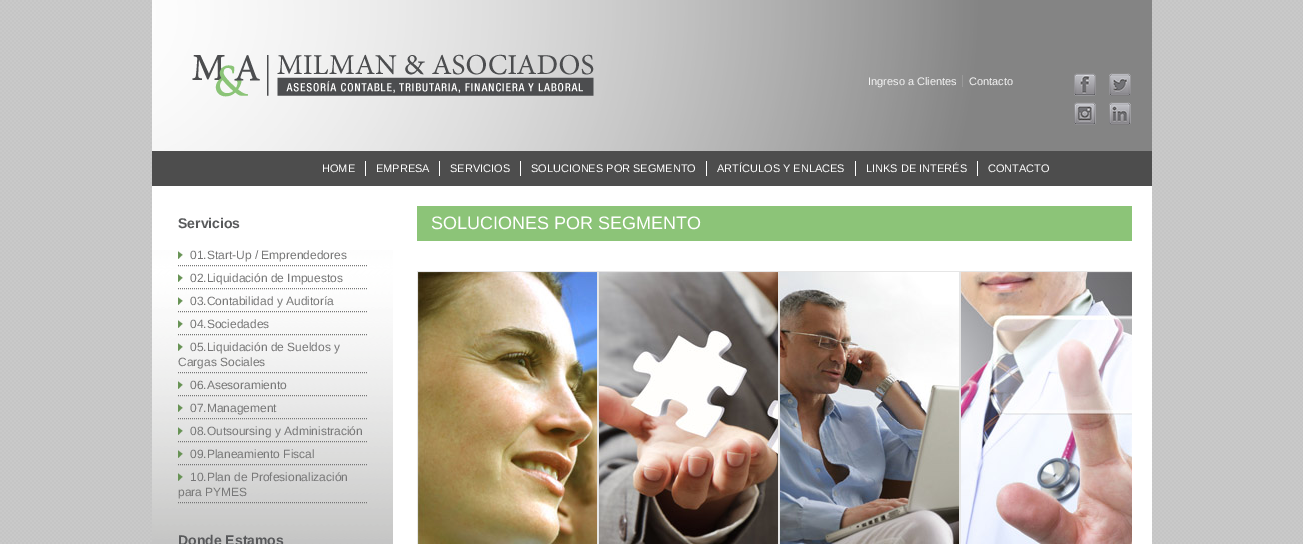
%!PS
<< /PageSize [1303 544] >> setpagedevice
/picture { 5 dict begin { /h /w /y /x /name } { exch def } forall
  gsave x y translate w h scale
  w h 8 [w 0 0 h 0 0] name (r) file false 3 colorimage grestore end } def
0 544 translate 1 -1 scale
4 setmiterlimit
1 setgray
0 0 1303 544 rectfill
(img1.rgb) 0 0 1303 544 picture
(img2.rgb) 152 0 1000 151 picture
(img3.rgb) 192 54 402 43 picture
/LiberationSans-Regular [11 0 0 -11 0 0] selectfont
0.957 setgray
868 85 moveto (Ingreso a Clientes) show
969 85 moveto (Contacto) show
0.6 setgray
962 75 1 12 rectfill
(img4.rgb) 1074 73 22 23 picture
(img5.rgb) 1109 73 22 23 picture
(img6.rgb) 1074 102 22 23 picture
(img7.rgb) 1109 102 22 23 picture
0.302 setgray
152 151 1000 35 rectfill
1 setgray
322 172 moveto (HOME) show
365 161 1 15 rectfill
376 172 moveto (EMPRESA) show
439 161 1 15 rectfill
450 172 moveto (SERVICIOS) show
520 161 1 15 rectfill
531 172 moveto (SOLUCIONES POR SEGMENTO) show
706 161 1 15 rectfill
717 172 moveto (ARTÍCULOS Y ENLACES) show
855 161 1 15 rectfill
866 172 moveto (LINKS DE INTERÉS) show
977 161 1 15 rectfill
988 172 moveto (CONTACTO) show
393 186 759 358 rectfill
(img8.rgb) 152 186 241 358 picture
/LiberationSans-Bold [14 0 0 -14 0 0] selectfont
0.345 0.349 0.357 setrgbcolor
178 228 moveto (Servicios) show
0.467 setgray
[1 1] 0 setdash
newpath 178 265.5 moveto 368 265.5 lineto stroke
(img9.rgb) 178 251 5 8 picture
/LiberationSans-Regular [12 0 0 -12 0 0] selectfont
190 259 moveto (01.Start-Up / Emprendedores) show
newpath 178 288.5 moveto 368 288.5 lineto stroke
(img10.rgb) 178 274 5 8 picture
190 282 moveto (02.Liquidación de Impuestos) show
newpath 178 311.5 moveto 368 311.5 lineto stroke
(img11.rgb) 178 297 5 8 picture
190 305 moveto (03.Contabilidad y Auditoría) show
newpath 178 334.5 moveto 368 334.5 lineto stroke
(img12.rgb) 178 320 5 8 picture
190 328 moveto (04.Sociedades) show
newpath 178 372.5 moveto 368 372.5 lineto stroke
(img13.rgb) 178 343 5 8 picture
190 351 moveto (05.Liquidación de Sueldos y) show
178 366 moveto (Cargas Sociales) show
newpath 178 395.5 moveto 368 395.5 lineto stroke
(img14.rgb) 178 381 5 8 picture
190 389 moveto (06.Asesoramiento) show
newpath 178 418.5 moveto 368 418.5 lineto stroke
(img15.rgb) 178 404 5 8 picture
190 412 moveto (07.Management) show
newpath 178 441.5 moveto 368 441.5 lineto stroke
(img16.rgb) 178 427 5 8 picture
190 435 moveto (08.Outsoursing y Administración) show
newpath 178 464.5 moveto 368 464.5 lineto stroke
(img17.rgb) 178 450 5 8 picture
190 458 moveto (09.Planeamiento Fiscal) show
newpath 178 502.5 moveto 368 502.5 lineto stroke
(img18.rgb) 178 473 5 8 picture
190 481 moveto (10.Plan de Profesionalización) show
178 496 moveto (para PYMES) show
/LiberationSans-Bold [14 0 0 -14 0 0] selectfont
0.345 0.349 0.357 setrgbcolor
178 545 moveto (Donde Estamos) show
0.549 0.769 0.471 setrgbcolor
417 206 715 35 rectfill
/LiberationSans-Regular [18 0 0 -18 0 0] selectfont
1 setgray
431 229 moveto (SOLUCIONES POR SEGMENTO) show
0.902 setgray
[] 0 setdash
417.5 271.5 180 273 rectstroke
(img19.rgb) 418 272 179 272 picture
598.5 271.5 180 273 rectstroke
(img20.rgb) 599 272 179 272 picture
779.5 271.5 180 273 rectstroke
(img21.rgb) 780 272 179 272 picture
gsave
417 186 715 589 rectclip
960.5 271.5 179 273 rectstroke
grestore
(img22.rgb) 961 272 171 272 picture
showpage
